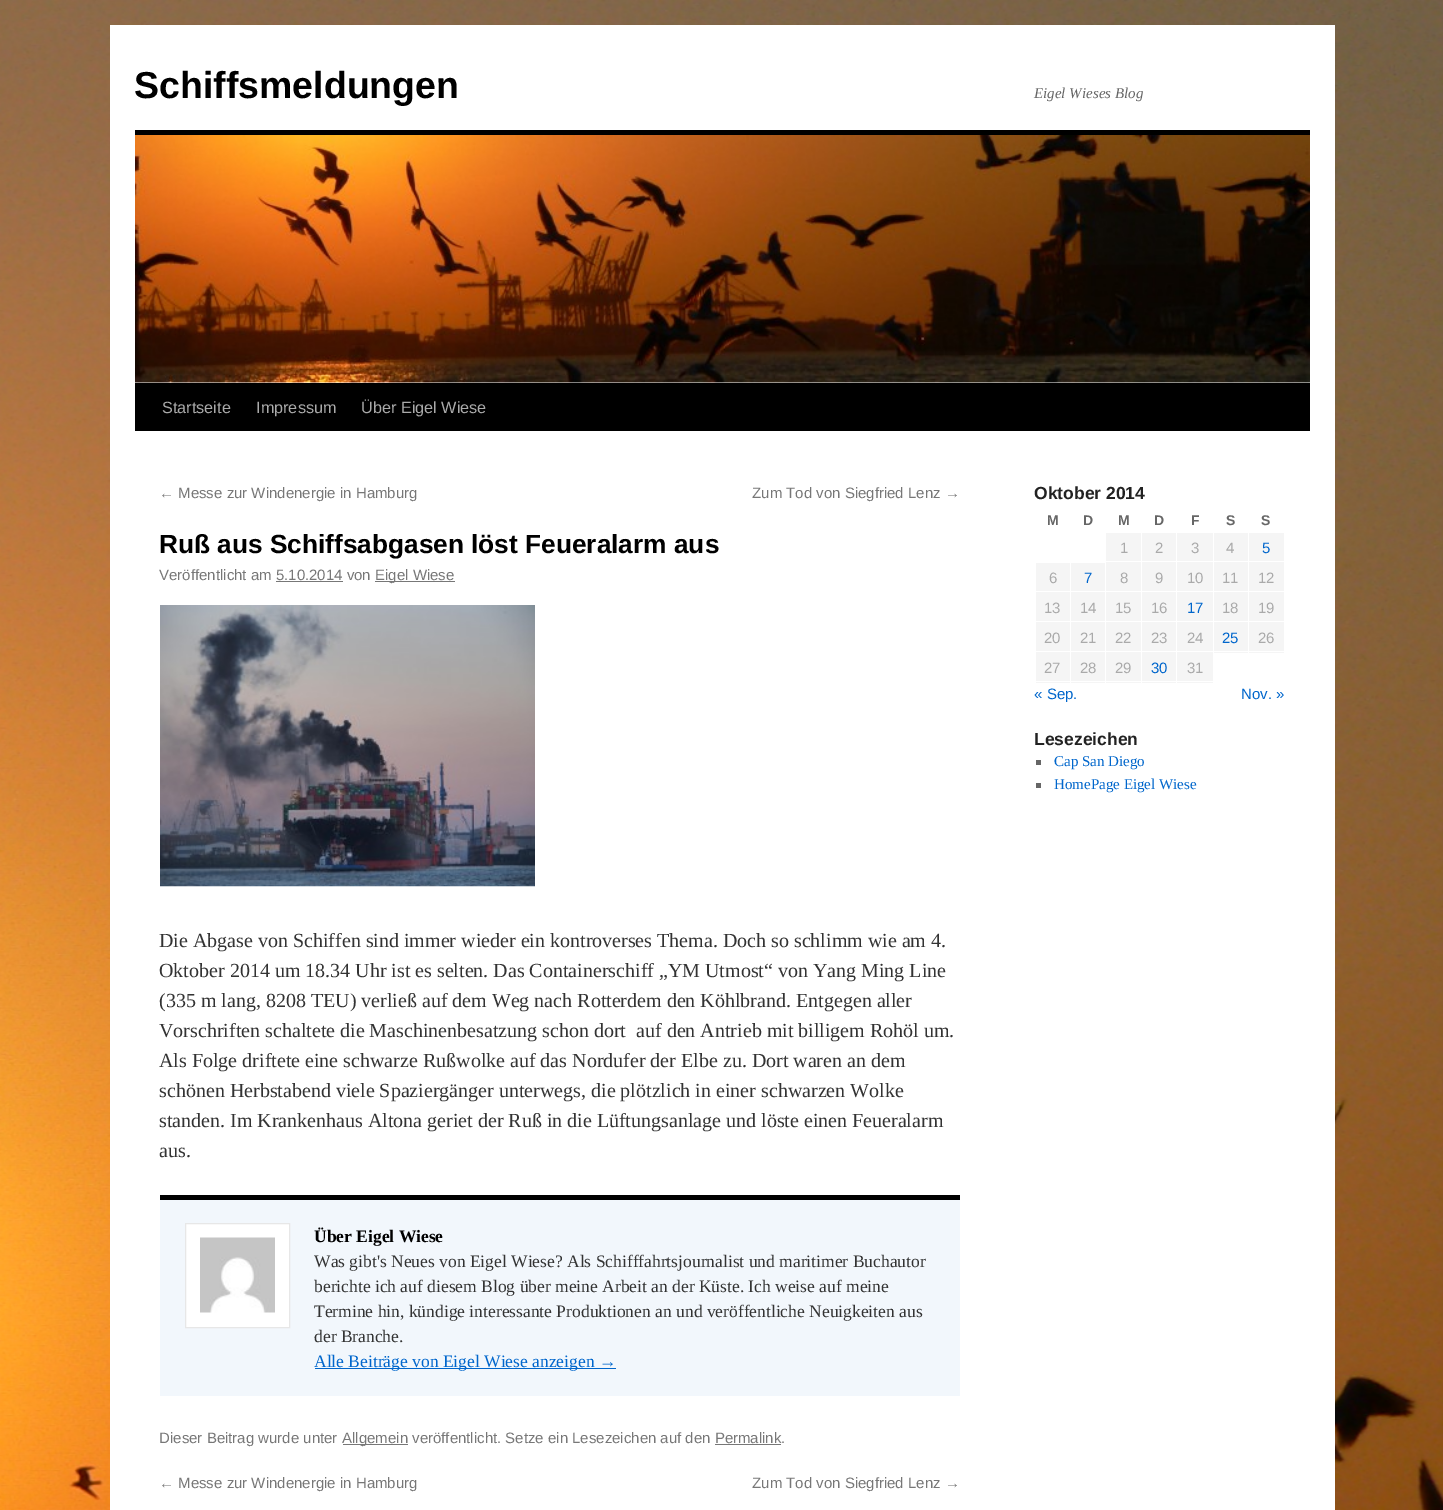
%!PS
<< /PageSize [1443 1510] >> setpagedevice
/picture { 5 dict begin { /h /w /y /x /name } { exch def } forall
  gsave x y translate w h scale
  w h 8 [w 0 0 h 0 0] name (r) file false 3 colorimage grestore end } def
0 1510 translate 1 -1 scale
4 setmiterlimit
1 setgray
0 0 1443 1510 rectfill
(img1.rgb) 0 0 1443 1510 picture
110 25 1225 1485 rectfill
/LiberationSans-Bold [37.5 0 0 -37.5 0 0] selectfont
0 setgray
134 98 moveto (Schiffsmeldungen) show
/LiberationSerif-Italic [15 0 0 -15 0 0] selectfont
0.4 setgray
1034 98 moveto (Eigel Wieses Blog) show
0 setgray
135 130 1175 5 rectfill
135 383 1175 48 rectfill
(img2.rgb) 135 135 1175 248 picture
/LiberationSans-Regular [16.25 0 0 -16.25 0 0] selectfont
0.667 setgray
162 413 moveto (Startseite) show
256 413 moveto (Impressum) show
361 413 moveto (Über Eigel Wiese) show
/LiberationSans-Regular [15 0 0 -15 0 0] selectfont
0.467 setgray
159 498 moveto (← Messe zur Windenergie in Hamburg) show
752 498 moveto (Zum Tod von Siegfried Lenz →) show
/LiberationSans-Bold [26.25 0 0 -26.25 0 0] selectfont
0 setgray
159 553 moveto (Ruß aus Schiffsabgasen löst Feueralarm aus) show
/LiberationSans-Regular [15 0 0 -15 0 0] selectfont
0.467 setgray
159 580 moveto (Veröffentlicht am 5.10.2014 von) show
375 581 80 1 rectfill
375 580 moveto (Eigel Wiese) show
276 581 67 1 rectfill
(img3.rgb) 160 605 375 282 picture
/LiberationSerif-Regular [20 0 0 -20 0 0] selectfont
0.2 setgray
159 947 moveto (Die Abgase von Schiffen sind immer wieder ein kontroverses Thema. Doch so schlimm wie am 4.) show
159 977 moveto (Oktober 2014 um 18.34 Uhr ist es selten. Das Containerschiff „YM Utmost“ von Yang Ming Line) show
159 1007 moveto (\(335 m lang, 8208 TEU\) verließ auf dem Weg nach Rotterdem den Köhlbrand. Entgegen aller) show
159 1037 moveto (Vorschriften schaltete die Maschinenbesatzung schon dort  auf den Antrieb mit billigem Rohöl um.) show
159 1067 moveto (Als Folge driftete eine schwarze Rußwolke auf das Nordufer der Elbe zu. Dort waren an dem) show
159 1097 moveto (schönen Herbstabend viele Spaziergänger unterwegs, die plötzlich in einer schwarzen Wolke) show
159 1127 moveto (standen. Im Krankenhaus Altona geriet der Ruß in die Lüftungsanlage und löste einen Feueralarm) show
159 1157 moveto (aus.) show
0.949 0.969 0.988 setrgbcolor
160 1200 800 196 rectfill
0 setgray
160 1195 800 5 rectfill
1 setgray
newpath 185.5 1223.5 moveto 289.5 1223.5 lineto 289.5 1327.5 lineto 185.5 1327.5 lineto closepath gsave fill grestore
0.906 setgray
stroke
(img4.rgb) 200 1237 75 76 picture
/LiberationSerif-Bold [17.5 0 0 -17.5 0 0] selectfont
0 setgray
314 1242 moveto (Über Eigel Wiese) show
/LiberationSerif-Regular [17.5 0 0 -17.5 0 0] selectfont
0.2 setgray
314 1267 moveto (Was gibt's Neues von Eigel Wiese? Als Schifffahrtsjournalist und maritimer Buchautor) show
314 1292 moveto (berichte ich auf diesem Blog über meine Arbeit an der Küste. Ich weise auf meine) show
314 1317 moveto (Termine hin, kündige interessante Produktionen an und veröffentliche Neuigkeiten aus) show
314 1342 moveto (der Branche.) show
0 0.4 0.8 setrgbcolor
315 1368 301 1 rectfill
314 1367 moveto (Alle Beiträge von Eigel Wiese anzeigen →) show
/LiberationSans-Regular [15 0 0 -15 0 0] selectfont
0.467 setgray
159 1443 moveto (Dieser Beitrag wurde unter) show
343 1444 65 1 rectfill
342 1443 moveto (Allgemein veröffentlicht. Setze ein Lesezeichen auf den Permalink.) show
715 1444 66 1 rectfill
159 1488 moveto (← Messe zur Windenergie in Hamburg) show
752 1488 moveto (Zum Tod von Siegfried Lenz →) show
/LiberationSans-Bold [17.5 0 0 -17.5 0 0] selectfont
0.133 setgray
1034 499 moveto (Oktober 2014) show
/LiberationSans-Bold [14 0 0 -14 0 0] selectfont
0.4 setgray
1047 525 moveto (M) show
1083 525 moveto (D) show
1118 525 moveto (M) show
1154 525 moveto (D) show
1191 525 moveto (F) show
1226 525 moveto (S) show
1261 525 moveto (S) show
0.961 setgray
1106 533 35 150 rectfill
/LiberationSans-Regular [15 0 0 -15 0 0] selectfont
0.667 setgray
1120 553 moveto (1) show
0.961 setgray
1142 533 71 30 rectfill
0.667 setgray
1155 553 moveto (2) show
0.961 setgray
1142 563 71 30 rectfill
1214 533 34 120 rectfill
1249 533 35 120 rectfill
1 setgray
1176 561 109 1 rectfill
0.961 setgray
1036 563 34 120 rectfill
1071 563 34 120 rectfill
1142 593 71 30 rectfill
1 setgray
1176 591 109 1 rectfill
0.961 setgray
1142 623 71 30 rectfill
1 setgray
1176 621 109 1 rectfill
1176 651 109 1 rectfill
0.961 setgray
1142 653 71 30 rectfill
1 setgray
1176 681 38 1 rectfill
1176 651 1 32 rectfill
1035 651 143 1 rectfill
1176 621 1 32 rectfill
1035 621 143 1 rectfill
1176 591 1 32 rectfill
1035 591 143 1 rectfill
1176 561 1 32 rectfill
1105 561 73 1 rectfill
1176 531 1 32 rectfill
0.667 setgray
1191 553 moveto (3) show
1226 553 moveto (4) show
0 0.4 0.8 setrgbcolor
1262 553 moveto (5) show
0.667 setgray
1049 583 moveto (6) show
0 0.4 0.8 setrgbcolor
1084 583 moveto (7) show
0.667 setgray
1120 583 moveto (8) show
1155 583 moveto (9) show
1187 583 moveto (10) show
1222 583 moveto (11) show
1258 583 moveto (12) show
1044 613 moveto (13) show
1080 613 moveto (14) show
1115 613 moveto (15) show
1151 613 moveto (16) show
0 0.4 0.8 setrgbcolor
1187 613 moveto (17) show
0.667 setgray
1222 613 moveto (18) show
1258 613 moveto (19) show
1044 643 moveto (20) show
1080 643 moveto (21) show
1115 643 moveto (22) show
1151 643 moveto (23) show
1187 643 moveto (24) show
0 0.4 0.8 setrgbcolor
1222 643 moveto (25) show
0.667 setgray
1258 643 moveto (26) show
1044 673 moveto (27) show
1080 673 moveto (28) show
1115 673 moveto (29) show
1 setgray
1035 681 143 1 rectfill
0 0.4 0.8 setrgbcolor
1151 673 moveto (30) show
0.667 setgray
1187 673 moveto (31) show
0 0.4 0.8 setrgbcolor
1034 699 moveto (« Sep.) show
1241 699 moveto (Nov. ») show
/LiberationSans-Bold [17.5 0 0 -17.5 0 0] selectfont
0.133 setgray
1034 745 moveto (Lesezeichen) show
0.4 setgray
1036 760 5 5 rectfill
/LiberationSerif-Regular [15 0 0 -15 0 0] selectfont
0 0.4 0.8 setrgbcolor
1054 766 moveto (Cap San Diego) show
0.4 setgray
1036 783 5 5 rectfill
0 0.4 0.8 setrgbcolor
1054 789 moveto (HomePage Eigel Wiese) show
showpage
